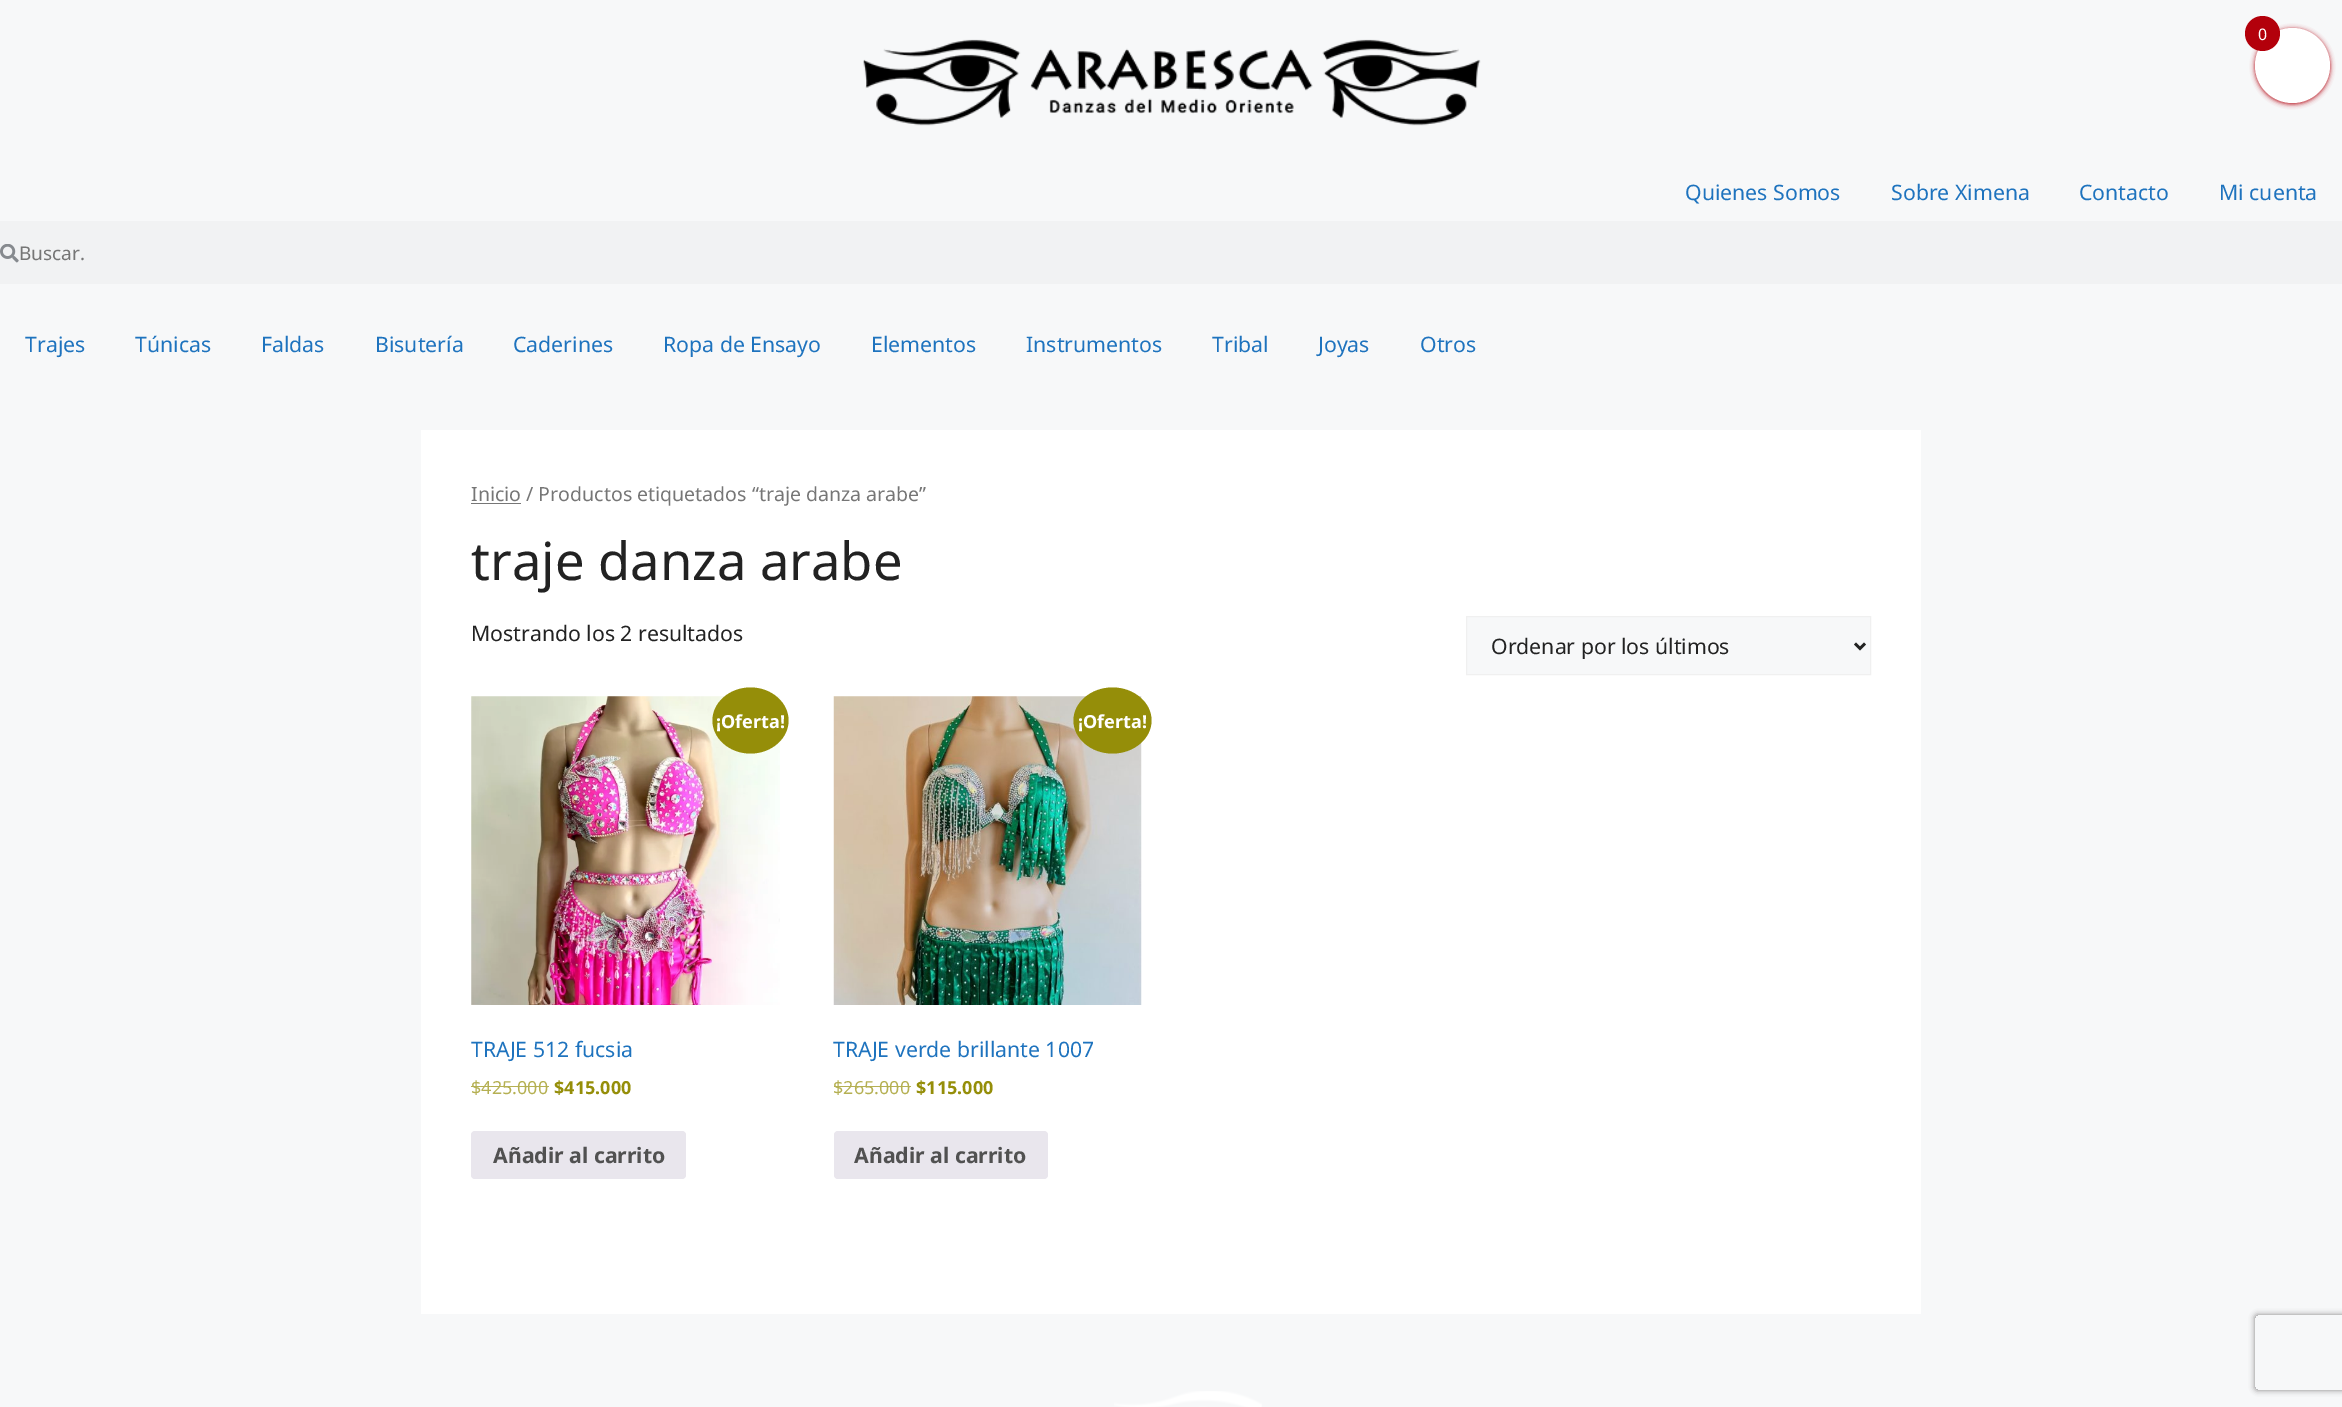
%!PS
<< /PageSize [2342 1407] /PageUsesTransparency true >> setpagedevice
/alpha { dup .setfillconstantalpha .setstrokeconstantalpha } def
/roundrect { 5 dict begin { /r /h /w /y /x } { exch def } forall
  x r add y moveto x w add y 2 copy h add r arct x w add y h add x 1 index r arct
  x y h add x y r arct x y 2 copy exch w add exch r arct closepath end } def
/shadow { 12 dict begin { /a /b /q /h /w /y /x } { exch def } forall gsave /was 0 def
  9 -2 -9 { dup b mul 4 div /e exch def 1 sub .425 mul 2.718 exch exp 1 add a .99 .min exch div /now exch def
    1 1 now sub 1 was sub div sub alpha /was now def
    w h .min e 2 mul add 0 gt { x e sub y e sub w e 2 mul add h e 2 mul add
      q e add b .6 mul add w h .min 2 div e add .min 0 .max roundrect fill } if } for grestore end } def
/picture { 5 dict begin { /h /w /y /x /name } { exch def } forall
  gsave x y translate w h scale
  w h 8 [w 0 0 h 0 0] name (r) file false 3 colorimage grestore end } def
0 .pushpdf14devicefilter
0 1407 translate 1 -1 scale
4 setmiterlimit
0.969 0.973 0.976 setrgbcolor
0 0 2342 1407 rectfill
0.702 0 0.043 setrgbcolor
2255 29 75 75 37.5 2.5 1 shadow
1 setgray
newpath 2292.5 65.5 37.5 0 360 arc closepath fill
0.702 0 0.043 setrgbcolor
newpath 2262.5 33.5 17.5 0 360 arc closepath fill
/NotoSans-Regular [16 0 0 -16 0 0] selectfont
1 setgray
2258 40 moveto (0) show
(img1.rgb) 863 39 618 87 picture
/NotoSans-Regular [21.25 0 0 -21.25 0 0] selectfont
0.118 0.451 0.745 setrgbcolor
1685 200 moveto (Quienes Somos) show
1891 200 moveto (Sobre Ximena) show
2079 200 moveto (Contacto) show
2219 200 moveto (Mi cuenta) show
0.945 0.949 0.953 setrgbcolor
0 221 2342 63 rectfill
(img2.rgb) 0 244 19 19 picture
/NotoSans-Regular [19 0 0 -19 0 0] selectfont
0.463 setgray
19 260 moveto (Buscar.) show
/NotoSans-Regular [21.25 0 0 -21.25 0 0] selectfont
0.118 0.451 0.745 setrgbcolor
25 352 moveto (Trajes) show
135 352 moveto (Túnicas) show
261 352 moveto (Faldas) show
375 352 moveto (Bisutería) show
513 352 moveto (Caderines) show
663 352 moveto (Ropa de Ensayo) show
871 352 moveto (Elementos) show
1026 352 moveto (Instrumentos) show
1212 352 moveto (Tribal) show
1318 352 moveto (Joyas) show
1420 352 moveto (Otros) show
1 setgray
421 430 1500 884 rectfill
0.463 setgray
471 503 50 1 rectfill
/NotoSans-Regular [19.55 0 0 -19.55 0 0] selectfont
471 501 moveto (Inicio / Productos etiquetados “traje danza arabe”) show
/NotoSans-Regular [52.5 0 0 -52.5 0 0] selectfont
0.133 setgray
471 580 moveto (traje danza arabe) show
/NotoSans-Regular [21.25 0 0 -21.25 0 0] selectfont
471 641 moveto (Mostrando los 2 resultados) show
0.969 0.973 0.976 setrgbcolor
newpath 1466.5 616.5 moveto 1870.5 616.5 lineto 1870.5 674.5 lineto 1466.5 674.5 lineto closepath gsave fill grestore
0.941 setgray
stroke
0.133 setgray
2.5 setlinewidth
newpath 1855 643.5 moveto 1860 648.5 lineto 1865 643.5 lineto stroke
1491 654 moveto (Ordenar por los últimos) show
(img3.rgb) 471 696 309 309 picture
0.584 0.557 0.035 setrgbcolor
newpath 750.5 687.5 moveto 771.5 687.5 788.5 702.5 788.5 720.5 curveto 788.5 738.5 771.5 753.5 750.5 753.5 curveto 729.5 753.5 712.5 738.5 712.5 720.5 curveto 712.5 702.5 729.5 687.5 750.5 687.5 curveto closepath fill
/NotoSans-Bold [18 0 0 -18 0 0] selectfont
1 setgray
716 728 moveto (¡Oferta!) show
/NotoSans-Regular [21.25 0 0 -21.25 0 0] selectfont
0.118 0.451 0.745 setrgbcolor
471 1057 moveto (TRAJE 512 fucsia) show
/NotoSans-Regular [18 0 0 -18 0 0] selectfont
0.71 0.69 0.325 setrgbcolor
471 1094 moveto ($425.000) show
471 1086 78 1 rectfill
/NotoSans-Bold [18 0 0 -18 0 0] selectfont
0.584 0.557 0.035 setrgbcolor
554 1094 moveto ($415.000) show
0.914 0.902 0.929 setrgbcolor
471 1131 215 48 4 roundrect fill
/NotoSans-Bold [21.25 0 0 -21.25 0 0] selectfont
0.318 setgray
493 1163 moveto (Añadir al carrito) show
(img4.rgb) 833 696 309 309 picture
0.584 0.557 0.035 setrgbcolor
newpath 1112.5 687.5 moveto 1134 687.5 1151.5 702.5 1151.5 720.5 curveto 1151.5 738.5 1134 753.5 1112.5 753.5 curveto 1091 753.5 1073.5 738.5 1073.5 720.5 curveto 1073.5 702.5 1091 687.5 1112.5 687.5 curveto closepath fill
/NotoSans-Bold [18 0 0 -18 0 0] selectfont
1 setgray
1078 728 moveto (¡Oferta!) show
/NotoSans-Regular [21.25 0 0 -21.25 0 0] selectfont
0.118 0.451 0.745 setrgbcolor
833 1057 moveto (TRAJE verde brillante 1007) show
/NotoSans-Regular [18 0 0 -18 0 0] selectfont
0.71 0.69 0.325 setrgbcolor
833 1094 moveto ($265.000) show
834 1086 77 1 rectfill
/NotoSans-Bold [18 0 0 -18 0 0] selectfont
0.584 0.557 0.035 setrgbcolor
916 1094 moveto ($115.000) show
0.914 0.902 0.929 setrgbcolor
834 1131 214 48 4 roundrect fill
/NotoSans-Bold [21.25 0 0 -21.25 0 0] selectfont
0.318 setgray
854 1163 moveto (Añadir al carrito) show
(img5.rgb) 1114 1391 148 16 picture
gsave
newpath 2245 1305 moveto 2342 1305 lineto 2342 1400 lineto 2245 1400 lineto closepath 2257.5 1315 moveto 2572.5 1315 lineto 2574 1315 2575 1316 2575 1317.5 curveto 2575 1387.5 lineto 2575 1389 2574 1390 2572.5 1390 curveto 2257.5 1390 lineto 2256 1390 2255 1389 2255 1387.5 curveto 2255 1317.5 lineto 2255 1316 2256 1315 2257.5 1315 curveto closepath eoclip newpath
0.502 setgray
2255 1315 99 75 2.5 3 1 shadow
grestore
.poppdf14devicefilter showpage
